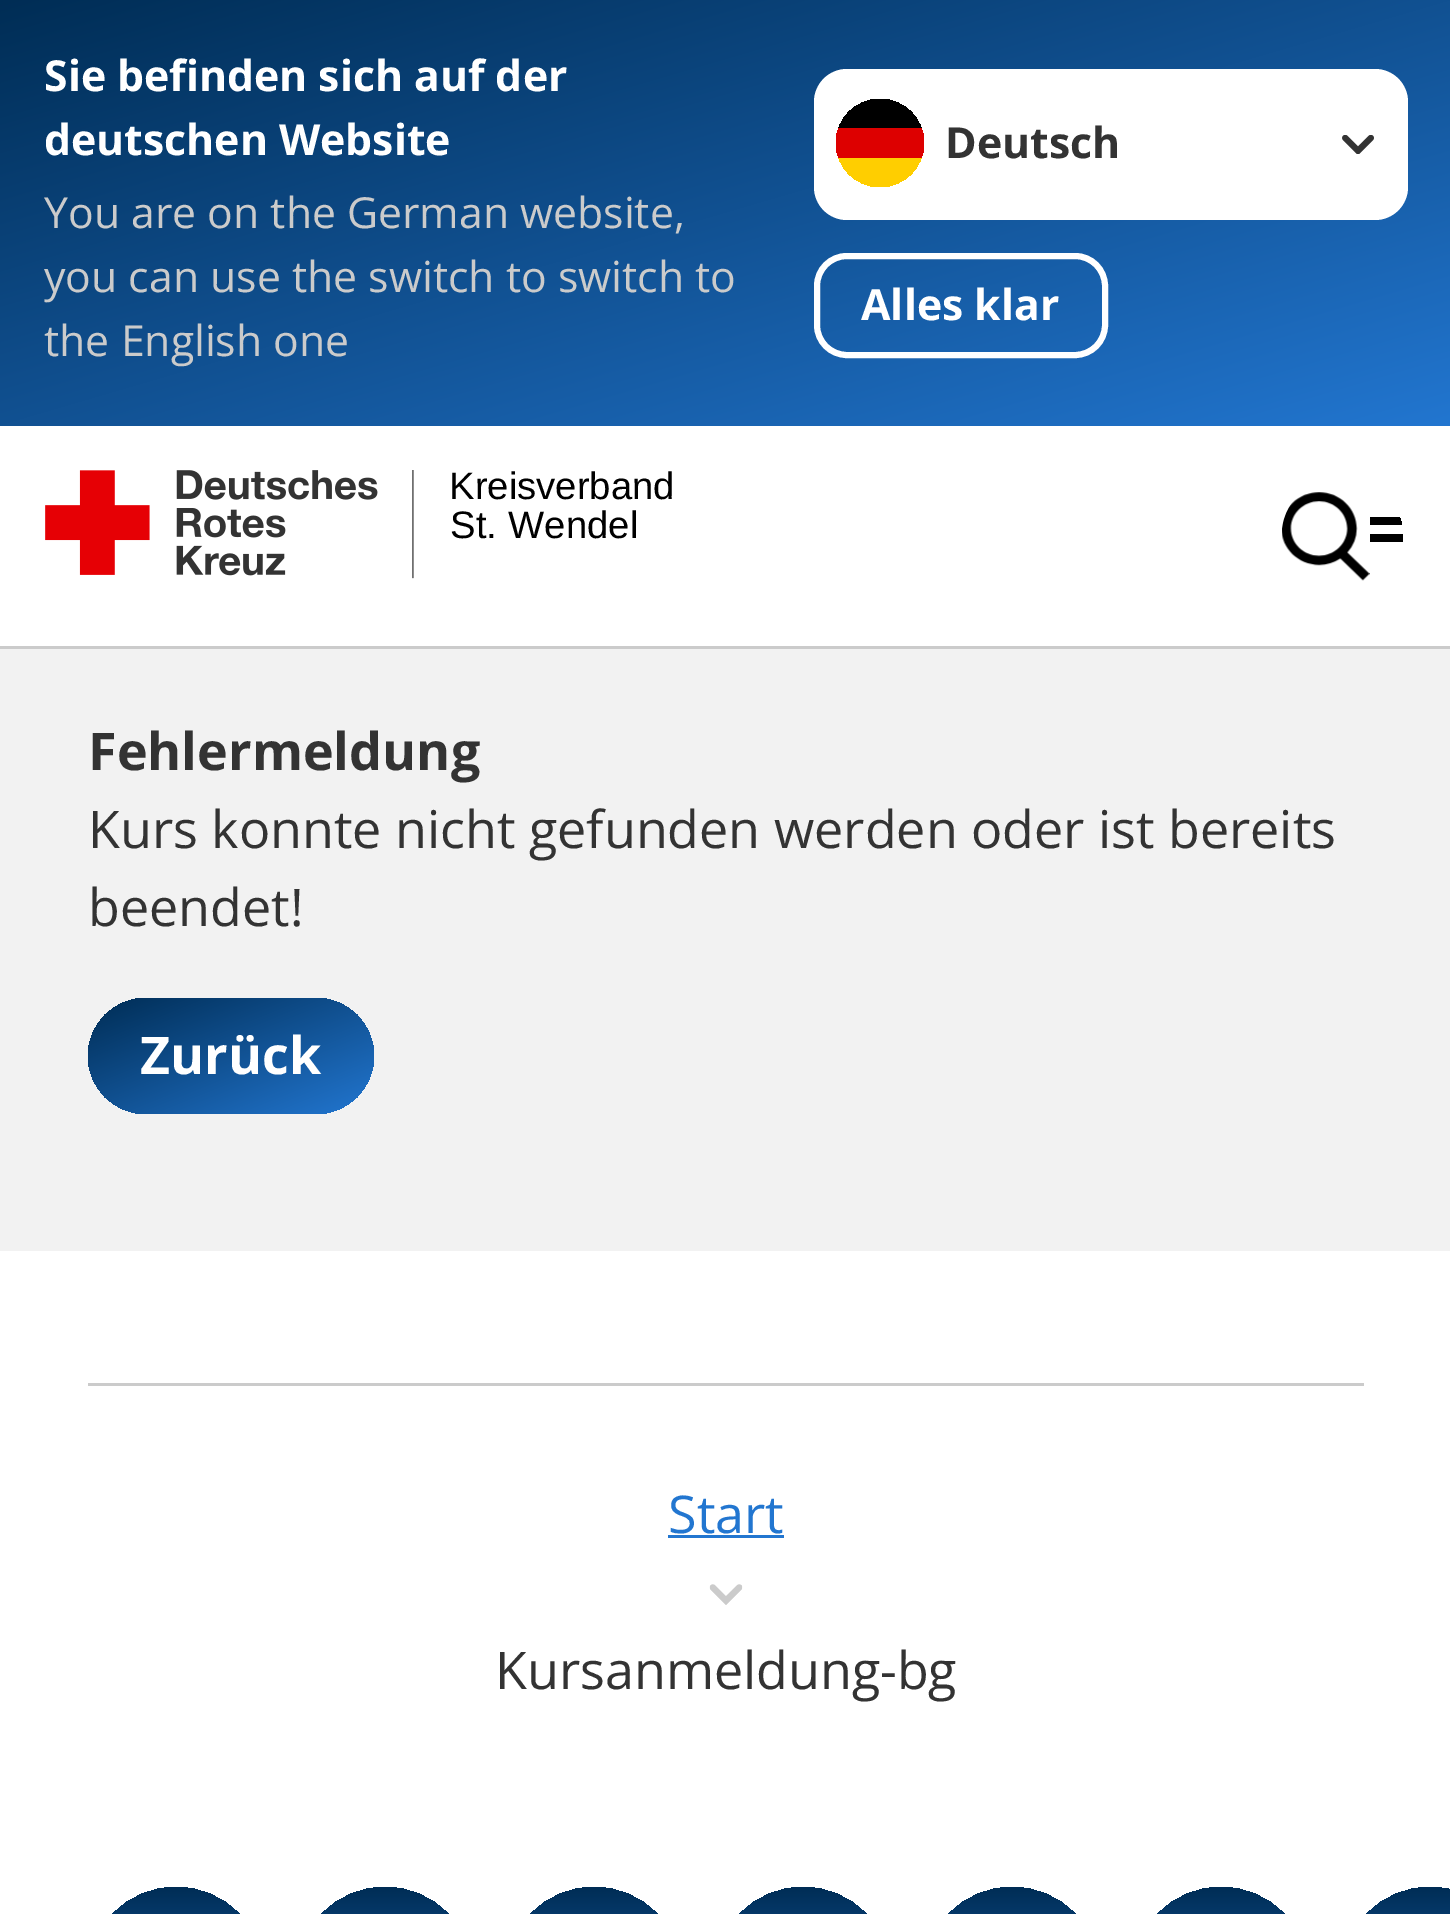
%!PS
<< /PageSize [1450 1914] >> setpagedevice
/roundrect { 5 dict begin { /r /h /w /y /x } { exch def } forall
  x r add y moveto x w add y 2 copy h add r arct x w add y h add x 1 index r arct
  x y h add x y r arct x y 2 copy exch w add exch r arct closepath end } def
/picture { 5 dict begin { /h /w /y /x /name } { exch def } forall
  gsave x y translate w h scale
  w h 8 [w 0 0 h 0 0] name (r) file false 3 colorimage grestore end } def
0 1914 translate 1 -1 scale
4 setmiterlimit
1 setgray
0 0 1450 1914 rectfill
gsave newpath 0 0 moveto 1450 0 lineto 1450 426 lineto 0 426 lineto closepath clip newpath
<< /ShadingType 2 /ColorSpace /DeviceRGB /Coords [611 -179 841 606] /Extend [true true] /Function << /FunctionType 2 /Domain [0 1] /C0 [0 0.176 0.333] /C1 [0.133 0.463 0.816] /N 1 >> >> shfill grestore
/OpenSans-Bold [42.75 0 0 -42.75 0 0] selectfont
44 91 moveto (Sie befinden sich auf der) show
44 155 moveto (deutschen Website) show
/OpenSans-Regular [42.75 0 0 -42.75 0 0] selectfont
0.796 setgray
44 228 moveto (You are on the German website,) show
44 292 moveto (you can use the switch to switch to) show
44 356 moveto (the English one) show
1 setgray
814 69 594 151 33 roundrect fill
gsave
836 99 88 88 44 roundrect clip newpath
1 0.808 0 setrgbcolor
838 158 84 29 rectfill
0 setgray
838 99 84 29 rectfill
0.867 0 0 setrgbcolor
836 128 88 30 rectfill
grestore
(img1.rgb) 1342 135 32 19 picture
/OpenSans-Bold [42.75 0 0 -42.75 0 0] selectfont
0.2 setgray
945 158 moveto (Deutsch) show
1 setgray
6 setlinewidth
817 256 288 99 30 roundrect stroke
861 320 moveto (Alles klar) show
0.796 setgray
0 646 1450 3 rectfill
(img2.rgb) 45 470 369 109 picture
/LiberationSans-Regular [38.25 0 0 -38.25 0 0] selectfont
0 setgray
449 499 moveto (Kreisverband) show
450 538 moveto 1 0 32 (St. Wendel) widthshow
(img3.rgb) 1282 492 88 89 picture
gsave
1282 476 121 121 60.5 roundrect clip newpath
1370 517 33 8 rectfill
1370 534 33 8 rectfill
grestore
0.949 setgray
0 649 1450 602 rectfill
/OpenSans-Bold [52 0 0 -52 0 0] selectfont
0.2 setgray
88 770 moveto (Fehlermeldung) show
/OpenSans-Regular [52 0 0 -52 0 0] selectfont
88 848 moveto (Kurs konnte nicht gefunden werden oder ist bereits) show
88 926 moveto (beendet!) show
gsave 88 998 286 116 58 roundrect clip newpath
<< /ShadingType 2 /ColorSpace /DeviceRGB /Coords [191 957 271 1155] /Extend [true true] /Function << /FunctionType 2 /Domain [0 1] /C0 [0 0.176 0.333] /C1 [0.133 0.463 0.816] /N 1 >> >> shfill grestore
/OpenSans-Bold [52 0 0 -52 0 0] selectfont
1 setgray
140 1074 moveto (Zurück) show
0.796 setgray
88 1383 1276 3 rectfill
/OpenSans-Regular [52 0 0 -52 0 0] selectfont
0.133 0.463 0.816 setrgbcolor
668 1533 moveto (Start) show
668 1535 116 3 rectfill
(img4.rgb) 709 1584 34 21 picture
0.2 setgray
495 1689 moveto (Kursanmeldung-bg) show
gsave 88 1887 176 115 88 roundrect clip newpath
<< /ShadingType 2 /ColorSpace /DeviceRGB /Coords [176 1887 176 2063] /Extend [true true] /Function << /FunctionType 2 /Domain [0 1] /C0 [0 0.176 0.333] /C1 [0.133 0.463 0.816] /N 1 >> >> shfill grestore
gsave 297 1887 176 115 88 roundrect clip newpath
<< /ShadingType 2 /ColorSpace /DeviceRGB /Coords [385 1887 385 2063] /Extend [true true] /Function << /FunctionType 2 /Domain [0 1] /C0 [0 0.176 0.333] /C1 [0.133 0.463 0.816] /N 1 >> >> shfill grestore
gsave 506 1887 176 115 88 roundrect clip newpath
<< /ShadingType 2 /ColorSpace /DeviceRGB /Coords [594 1887 594 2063] /Extend [true true] /Function << /FunctionType 2 /Domain [0 1] /C0 [0 0.176 0.333] /C1 [0.133 0.463 0.816] /N 1 >> >> shfill grestore
gsave 715 1887 176 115 88 roundrect clip newpath
<< /ShadingType 2 /ColorSpace /DeviceRGB /Coords [803 1887 803 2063] /Extend [true true] /Function << /FunctionType 2 /Domain [0 1] /C0 [0 0.176 0.333] /C1 [0.133 0.463 0.816] /N 1 >> >> shfill grestore
gsave 924 1887 176 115 88 roundrect clip newpath
<< /ShadingType 2 /ColorSpace /DeviceRGB /Coords [1012 1887 1012 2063] /Extend [true true] /Function << /FunctionType 2 /Domain [0 1] /C0 [0 0.176 0.333] /C1 [0.133 0.463 0.816] /N 1 >> >> shfill grestore
gsave 1133 1887 176 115 88 roundrect clip newpath
<< /ShadingType 2 /ColorSpace /DeviceRGB /Coords [1221 1887 1221 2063] /Extend [true true] /Function << /FunctionType 2 /Domain [0 1] /C0 [0 0.176 0.333] /C1 [0.133 0.463 0.816] /N 1 >> >> shfill grestore
gsave 1342 1887 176 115 88 roundrect clip newpath
<< /ShadingType 2 /ColorSpace /DeviceRGB /Coords [1430 1887 1430 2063] /Extend [true true] /Function << /FunctionType 2 /Domain [0 1] /C0 [0 0.176 0.333] /C1 [0.133 0.463 0.816] /N 1 >> >> shfill grestore
showpage
